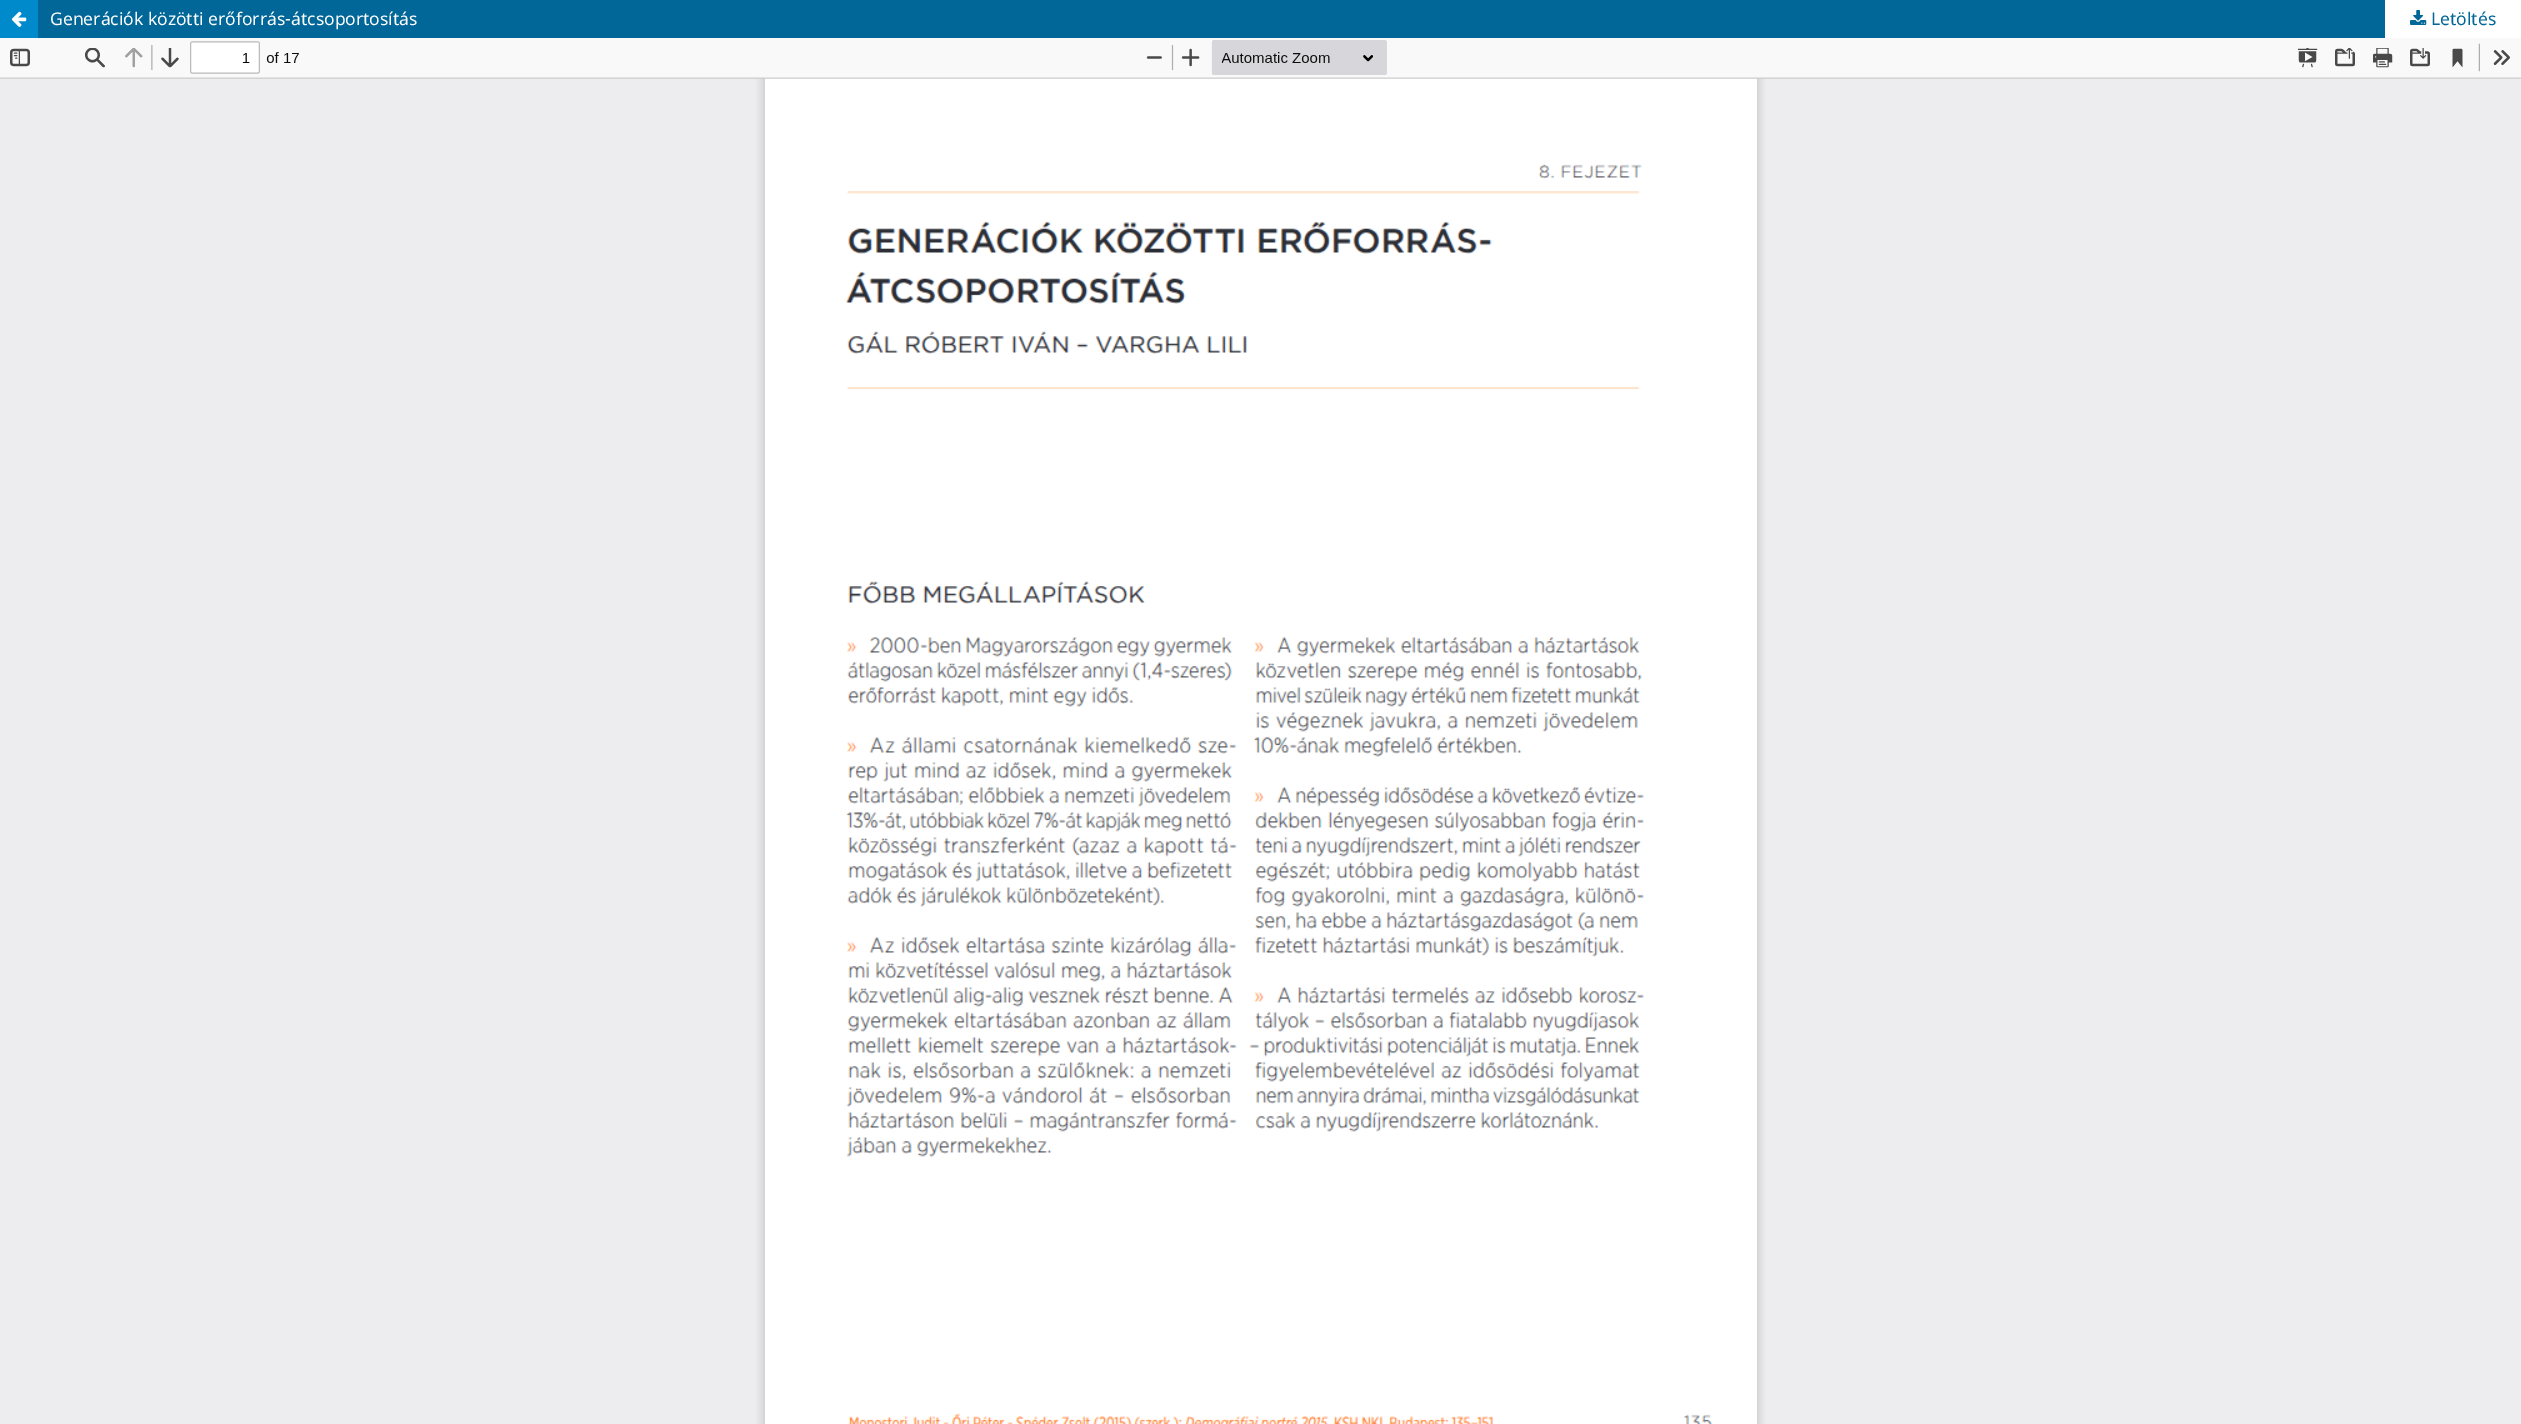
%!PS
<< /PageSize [2521 1424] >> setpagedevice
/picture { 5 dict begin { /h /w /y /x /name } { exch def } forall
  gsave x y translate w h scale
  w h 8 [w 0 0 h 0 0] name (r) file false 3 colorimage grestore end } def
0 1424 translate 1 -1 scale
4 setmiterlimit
1 setgray
0 0 2521 1424 rectfill
0 0.404 0.596 setrgbcolor
38 0 2347 38 rectfill
0 0.541 0.796 setrgbcolor
0 0 38 38 rectfill
(img1.rgb) 11 11 16 16 picture
/NotoSans-Regular [17.5 0 0 -17.5 0 0] selectfont
1 setgray
50 25 moveto (Generációk közötti erőforrás-átcsoportosítás) show
(img2.rgb) 2410 10 17 15 picture
0 0.404 0.596 setrgbcolor
2431 25 moveto (Letöltés) show
(img3.rgb) 0 38 2521 1386 picture
showpage
